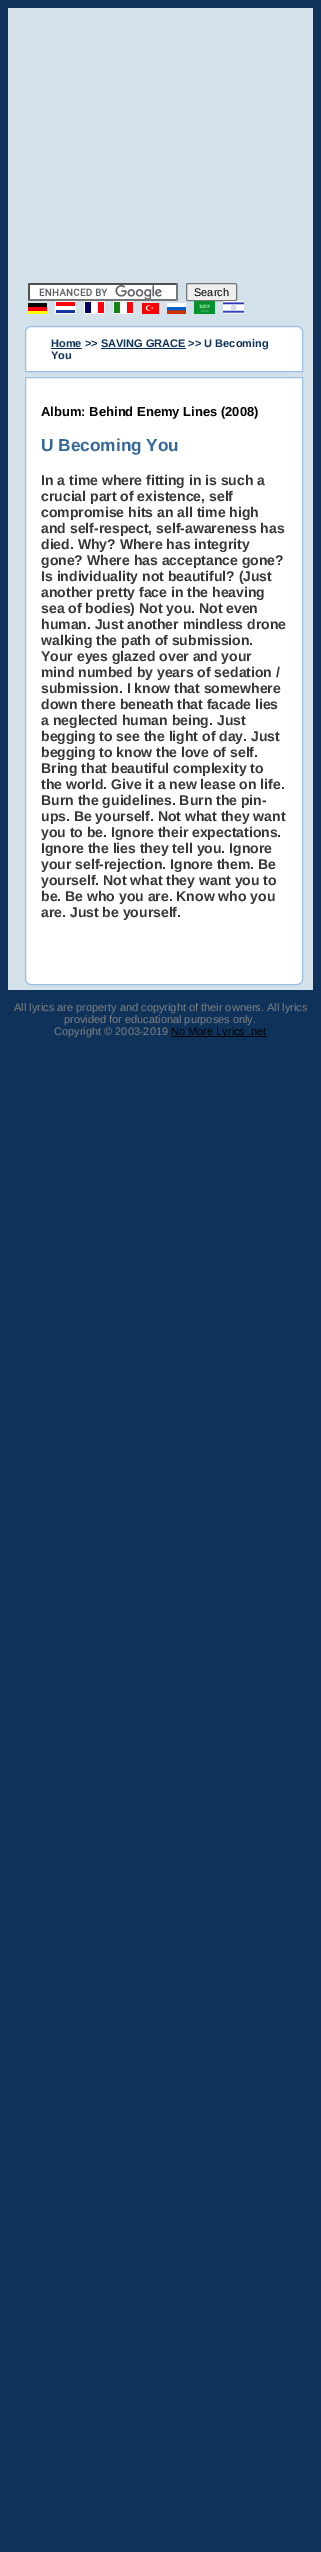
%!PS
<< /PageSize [321 2552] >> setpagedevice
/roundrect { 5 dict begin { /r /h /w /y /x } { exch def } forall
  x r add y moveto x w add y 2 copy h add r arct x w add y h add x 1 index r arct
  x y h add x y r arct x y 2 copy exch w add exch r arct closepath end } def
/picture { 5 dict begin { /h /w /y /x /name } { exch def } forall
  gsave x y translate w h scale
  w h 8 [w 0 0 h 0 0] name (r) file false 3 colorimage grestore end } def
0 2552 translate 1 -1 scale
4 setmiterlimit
0.055 0.196 0.349 setrgbcolor
0 0 321 2552 rectfill
0.827 0.886 0.918 setrgbcolor
8 8 305 982 rectfill
1 setgray
28 283 150 18 rectfill
(img1.rgb) 39 285 123 14 picture
0.31 setgray
newpath 28 283 moveto 178 283 lineto 176 285 lineto 30 285 lineto closepath fill
0.463 setgray
newpath 178 283 moveto 178 301 lineto 176 299 lineto 176 285 lineto closepath fill
newpath 178 301 moveto 28 301 lineto 30 299 lineto 176 299 lineto closepath fill
0.31 setgray
newpath 28 301 moveto 28 283 lineto 30 285 lineto 30 299 lineto closepath fill
0.937 setgray
186.5 283.5 50 17 1.5 roundrect gsave fill grestore
0.463 setgray
stroke
/LiberationSans-Regular [11 0 0 -11 0 0] selectfont
0 setgray
194 296 moveto (Search) show
(img2.rgb) 28 303 19 11 picture
(img3.rgb) 55 301 21 13 picture
(img4.rgb) 84 301 21 13 picture
(img5.rgb) 113 301 21 13 picture
(img6.rgb) 142 303 17 11 picture
(img7.rgb) 167 303 19 11 picture
(img8.rgb) 194 301 21 13 picture
(img9.rgb) 223 301 21 13 picture
1 setgray
newpath 31 326.5 moveto 297 326.5 lineto 300 326.5 302.5 329 302.5 332 curveto 302.5 371.5 lineto 25.5 371.5 lineto 25.5 332 lineto 25.5 329 28 326.5 31 326.5 curveto closepath gsave fill grestore
0.612 0.745 0.902 setrgbcolor
stroke
0.055 0.196 0.349 setrgbcolor
51 348 31 1 rectfill
/LiberationSans-Bold [11 0 0 -11 0 0] selectfont
51 347 moveto (Home >> SAVING GRACE >> U Becoming) show
101 348 85 1 rectfill
51 359 moveto (You) show
1 setgray
newpath 25.5 377.5 moveto 302.5 377.5 lineto 302.5 979 lineto 302.5 982 300 984.5 297 984.5 curveto 31 984.5 lineto 28 984.5 25.5 982 25.5 979 curveto closepath gsave fill grestore
0.612 0.745 0.902 setrgbcolor
stroke
/LiberationSans-Bold [13 0 0 -13 0 0] selectfont
0 setgray
41 416 moveto (Album: Behind Enemy Lines \(2008\)) show
/LiberationSans-Bold [17.25 0 0 -17.25 0 0] selectfont
0.2 0.4 0.6 setrgbcolor
41 451 moveto (U Becoming You) show
/LiberationSans-Bold [14 0 0 -14 0 0] selectfont
0.212 setgray
41 485 moveto (In a time where fitting in is such a) show
41 501 moveto (crucial part of existence, self) show
41 517 moveto (compromise hits an all time high) show
41 533 moveto (and self-respect, self-awareness has) show
41 549 moveto (died. Why? Where has integrity) show
41 565 moveto (gone? Where has acceptance gone?) show
41 581 moveto (Is individuality not beautiful? \(Just) show
41 597 moveto (another pretty face in the heaving) show
41 613 moveto (sea of bodies\) Not you. Not even) show
41 629 moveto (human. Just another mindless drone) show
41 645 moveto (walking the path of submission.) show
41 661 moveto (Your eyes glazed over and your) show
41 677 moveto (mind numbed by years of sedation /) show
41 693 moveto (submission. I know that somewhere) show
41 709 moveto (down there beneath that facade lies) show
41 725 moveto (a neglected human being. Just) show
41 741 moveto (begging to see the light of day. Just) show
41 757 moveto (begging to know the love of self.) show
41 773 moveto (Bring that beautiful complexity to) show
41 789 moveto (the world. Give it a new lease on life.) show
41 805 moveto (Burn the guidelines. Burn the pin-) show
41 821 moveto (ups. Be yourself. Not what they want) show
41 837 moveto (you to be. Ignore their expectations.) show
41 853 moveto (Ignore the lies they tell you. Ignore) show
41 869 moveto (your self-rejection. Ignore them. Be) show
41 885 moveto (yourself. Not what they want you to) show
41 901 moveto (be. Be who you are. Know who you) show
41 917 moveto (are. Just be yourself.) show
/LiberationSans-Regular [11 0 0 -11 0 0] selectfont
0.502 setgray
14 1011 moveto (All lyrics are property and copyright of their owners. All lyrics) show
64 1023 moveto (provided for educational purposes only.) show
54 1035 moveto (Copyright © 2003-2019) show
0 setgray
171 1036 96 1 rectfill
171 1035 moveto (No More Lyrics .net) show
showpage
